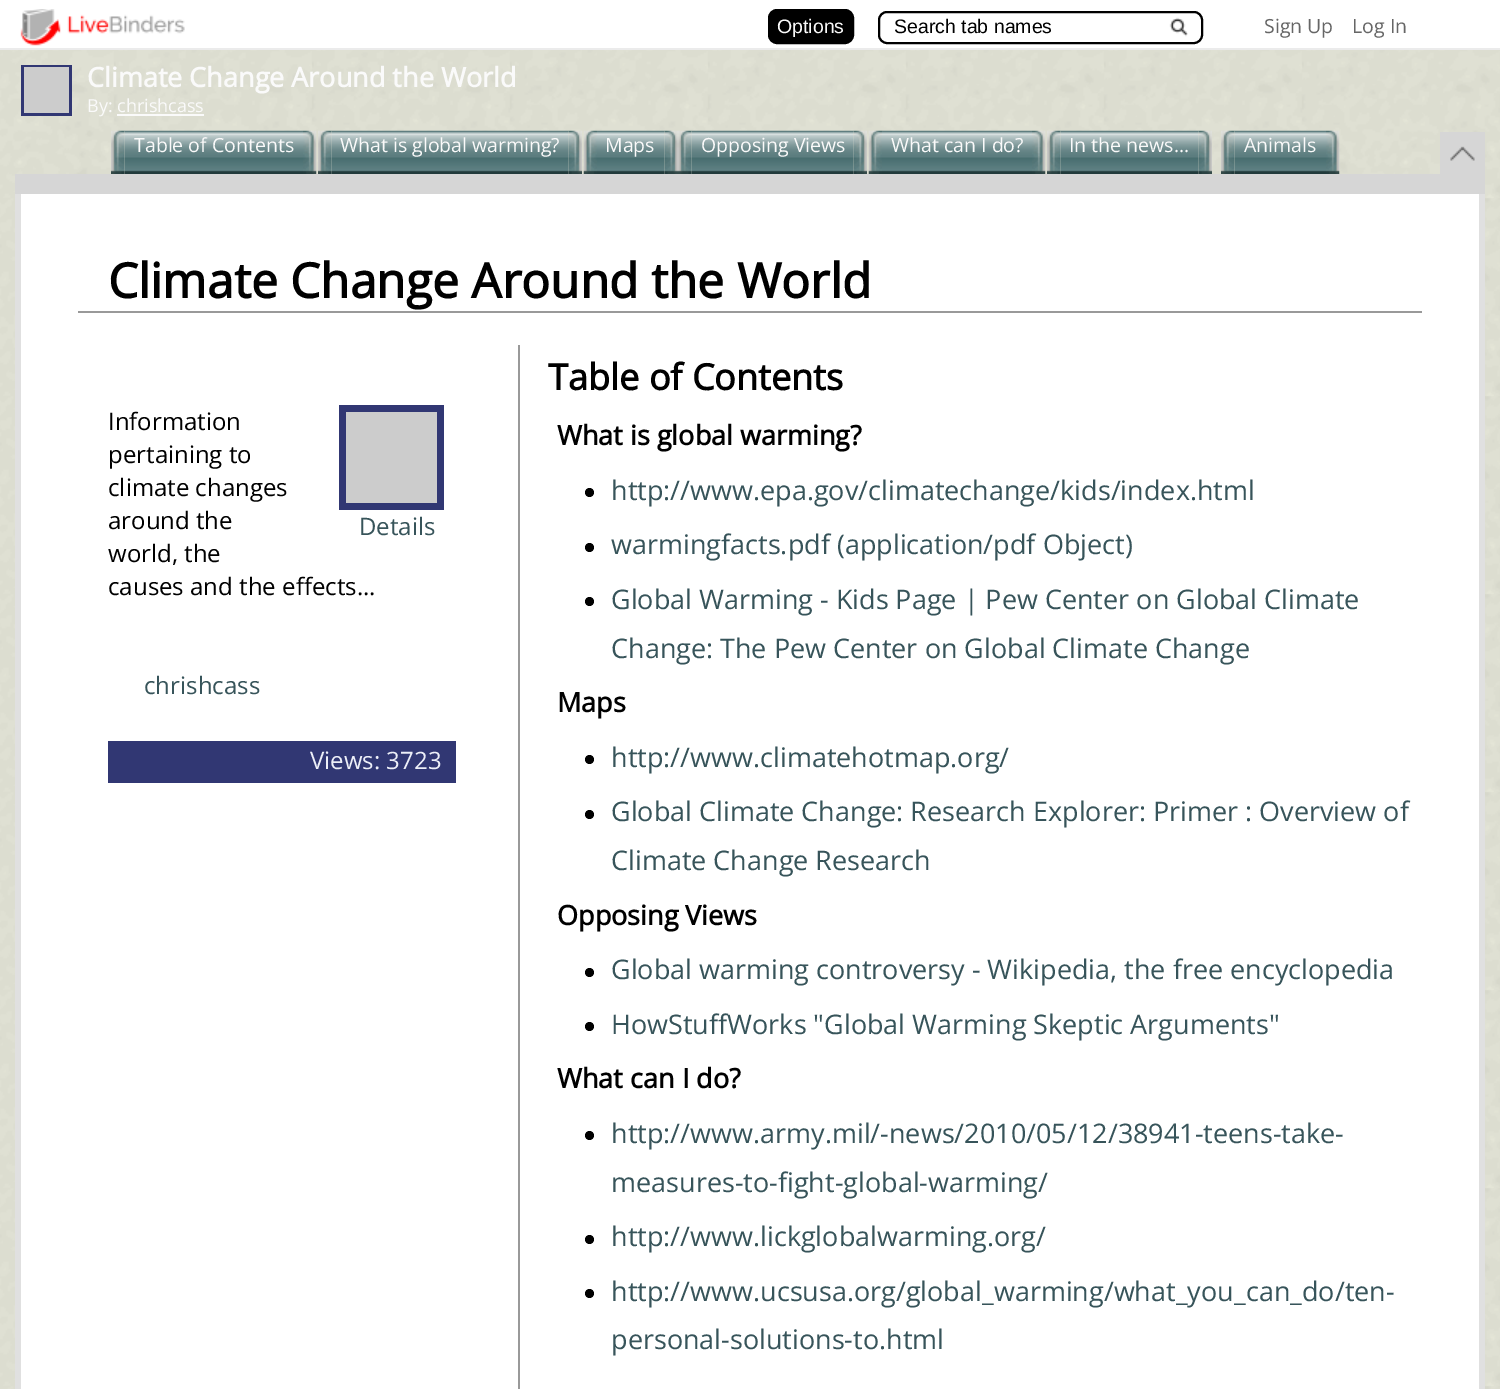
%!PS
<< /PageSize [1500 1389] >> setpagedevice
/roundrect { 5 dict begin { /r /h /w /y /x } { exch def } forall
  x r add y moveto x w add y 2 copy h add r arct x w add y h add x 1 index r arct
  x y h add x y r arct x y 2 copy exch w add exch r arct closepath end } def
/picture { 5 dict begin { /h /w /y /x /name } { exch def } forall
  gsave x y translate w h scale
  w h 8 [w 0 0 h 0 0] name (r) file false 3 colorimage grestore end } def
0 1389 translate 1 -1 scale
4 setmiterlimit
1 setgray
0 0 1500 1389 rectfill
(img1.rgb) 0 50 1500 1339 picture
0.922 setgray
0 48 1500 2 rectfill
(img2.rgb) 20 9 165 37 picture
0 setgray
769 10 84 33 8 roundrect gsave fill grestore
2 setlinewidth
stroke
/LiberationSans-Regular [19.5 0 0 -19.5 0 0] selectfont
0.98 setgray
777 33 moveto (Options) show
(img3.rgb) 1169 17 19 20 picture
0 setgray
879 12 323 31 8 roundrect stroke
894 33 moveto (Search tab names) show
/OpenSans-Regular [19.5 0 0 -19.5 0 0] selectfont
0.4 setgray
1264 33 moveto (Sign Up) show
1352 33 moveto (Log In) show
0.192 0.216 0.451 setrgbcolor
21 65 51 51 rectfill
0.8 setgray
24 67 45 46 rectfill
/OpenSans-Bold [27 0 0 -27 0 0] selectfont
0.98 setgray
87 87 moveto (Climate Change Around the World) show
/OpenSans-Regular [18 0 0 -18 0 0] selectfont
87 112 moveto (By: chrishcass) show
117 114 87 2 rectfill
0.839 setgray
15 174 1470 20 rectfill
(img4.rgb) 111 130 14 44 picture
(img5.rgb) 124 130 179 44 picture
/OpenSans-Regular [19.5 0 0 -19.5 0 0] selectfont
0.98 setgray
134 152 moveto (Table of Contents) show
(img6.rgb) 303 130 14 44 picture
(img7.rgb) 318 130 14 44 picture
(img8.rgb) 331 130 238 44 picture
340 152 moveto (What is global warming?) show
(img9.rgb) 568 130 14 44 picture
(img10.rgb) 583 130 14 44 picture
(img11.rgb) 597 130 68 44 picture
605 152 moveto (Maps) show
(img12.rgb) 664 130 14 44 picture
(img13.rgb) 678 130 14 44 picture
(img14.rgb) 691 130 163 44 picture
701 152 moveto (Opposing Views) show
(img15.rgb) 853 130 14 44 picture
(img16.rgb) 868 130 14 44 picture
(img17.rgb) 882 130 150 44 picture
891 152 moveto (What can I do?) show
(img18.rgb) 1032 130 14 44 picture
(img19.rgb) 1047 130 14 44 picture
(img20.rgb) 1060 130 139 44 picture
1069 152 moveto (In the news...) show
(img21.rgb) 1198 130 14 44 picture
(img22.rgb) 1221 130 14 44 picture
(img23.rgb) 1234 130 92 44 picture
1244 152 moveto (Animals) show
(img24.rgb) 1326 130 14 44 picture
(img25.rgb) 1440 132 45 42 picture
1 setgray
21 194 1458 1195 rectfill
0.878 setgray
1479 194 6 1195 rectfill
15 194 6 1195 rectfill
0.6 setgray
78 311 1344 2 rectfill
/OpenSans-Bold [48 0 0 -48 0 0] selectfont
0 setgray
108 298 moveto (Climate Change Around the World) show
0.6 setgray
518 345 2 1044 rectfill
/OpenSans-Bold [36 0 0 -36 0 0] selectfont
0 setgray
548 390 moveto (Table of Contents) show
/OpenSans-Regular [24 0 0 -24 0 0] selectfont
108 430 moveto (Information) show
108 463 moveto (pertaining to) show
108 496 moveto (climate changes) show
108 529 moveto (around the) show
0.192 0.216 0.451 setrgbcolor
339 405 105 105 rectfill
0.8 setgray
346 412 91 91 rectfill
0.216 0.329 0.353 setrgbcolor
359 535 moveto (Details) show
0 setgray
108 562 moveto (world, the) show
108 595 moveto (causes and the effects...) show
0.216 0.329 0.353 setrgbcolor
144 694 moveto (chrishcass) show
0.192 0.216 0.451 setrgbcolor
108 741 348 42 rectfill
0.929 0.937 0.973 setrgbcolor
310 769 moveto (Views: 3723) show
/OpenSans-Bold [27 0 0 -27 0 0] selectfont
0 setgray
557 445 moveto (What is global warming?) show
newpath 589.5 492.5 4.5 0 360 arc closepath fill
/OpenSans-Regular [27 0 0 -27 0 0] selectfont
0.216 0.329 0.353 setrgbcolor
611 500 moveto (http://www.epa.gov/climatechange/kids/index.html) show
0 setgray
newpath 589.5 547.5 4.5 0 360 arc closepath fill
0.216 0.329 0.353 setrgbcolor
611 554 moveto (warmingfacts.pdf \(application/pdf Object\)) show
0 setgray
newpath 589.5 601.5 4.5 0 360 arc closepath fill
0.216 0.329 0.353 setrgbcolor
611 609 moveto (Global Warming - Kids Page | Pew Center on Global Climate) show
611 658 moveto (Change: The Pew Center on Global Climate Change) show
/OpenSans-Bold [27 0 0 -27 0 0] selectfont
0 setgray
557 712 moveto (Maps) show
newpath 589.5 759.5 4.5 0 360 arc closepath fill
/OpenSans-Regular [27 0 0 -27 0 0] selectfont
0.216 0.329 0.353 setrgbcolor
611 767 moveto (http://www.climatehotmap.org/) show
0 setgray
newpath 589.5 814.5 4.5 0 360 arc closepath fill
0.216 0.329 0.353 setrgbcolor
611 821 moveto (Global Climate Change: Research Explorer: Primer : Overview of) show
611 870 moveto (Climate Change Research) show
/OpenSans-Bold [27 0 0 -27 0 0] selectfont
0 setgray
557 925 moveto (Opposing Views) show
newpath 589.5 972.5 4.5 0 360 arc closepath fill
/OpenSans-Regular [27 0 0 -27 0 0] selectfont
0.216 0.329 0.353 setrgbcolor
611 979 moveto (Global warming controversy - Wikipedia, the free encyclopedia) show
0 setgray
newpath 589.5 1026.5 4.5 0 360 arc closepath fill
0.216 0.329 0.353 setrgbcolor
611 1034 moveto (HowStuffWorks "Global Warming Skeptic Arguments") show
/OpenSans-Bold [27 0 0 -27 0 0] selectfont
0 setgray
557 1088 moveto (What can I do?) show
newpath 589.5 1135.5 4.5 0 360 arc closepath fill
/OpenSans-Regular [27 0 0 -27 0 0] selectfont
0.216 0.329 0.353 setrgbcolor
611 1143 moveto (http://www.army.mil/-news/2010/05/12/38941-teens-take-) show
611 1192 moveto (measures-to-fight-global-warming/) show
0 setgray
newpath 589.5 1239.5 4.5 0 360 arc closepath fill
0.216 0.329 0.353 setrgbcolor
611 1246 moveto (http://www.lickglobalwarming.org/) show
0 setgray
newpath 589.5 1293.5 4.5 0 360 arc closepath fill
0.216 0.329 0.353 setrgbcolor
611 1301 moveto (http://www.ucsusa.org/global_warming/what_you_can_do/ten-) show
611 1349 moveto (personal-solutions-to.html) show
showpage
